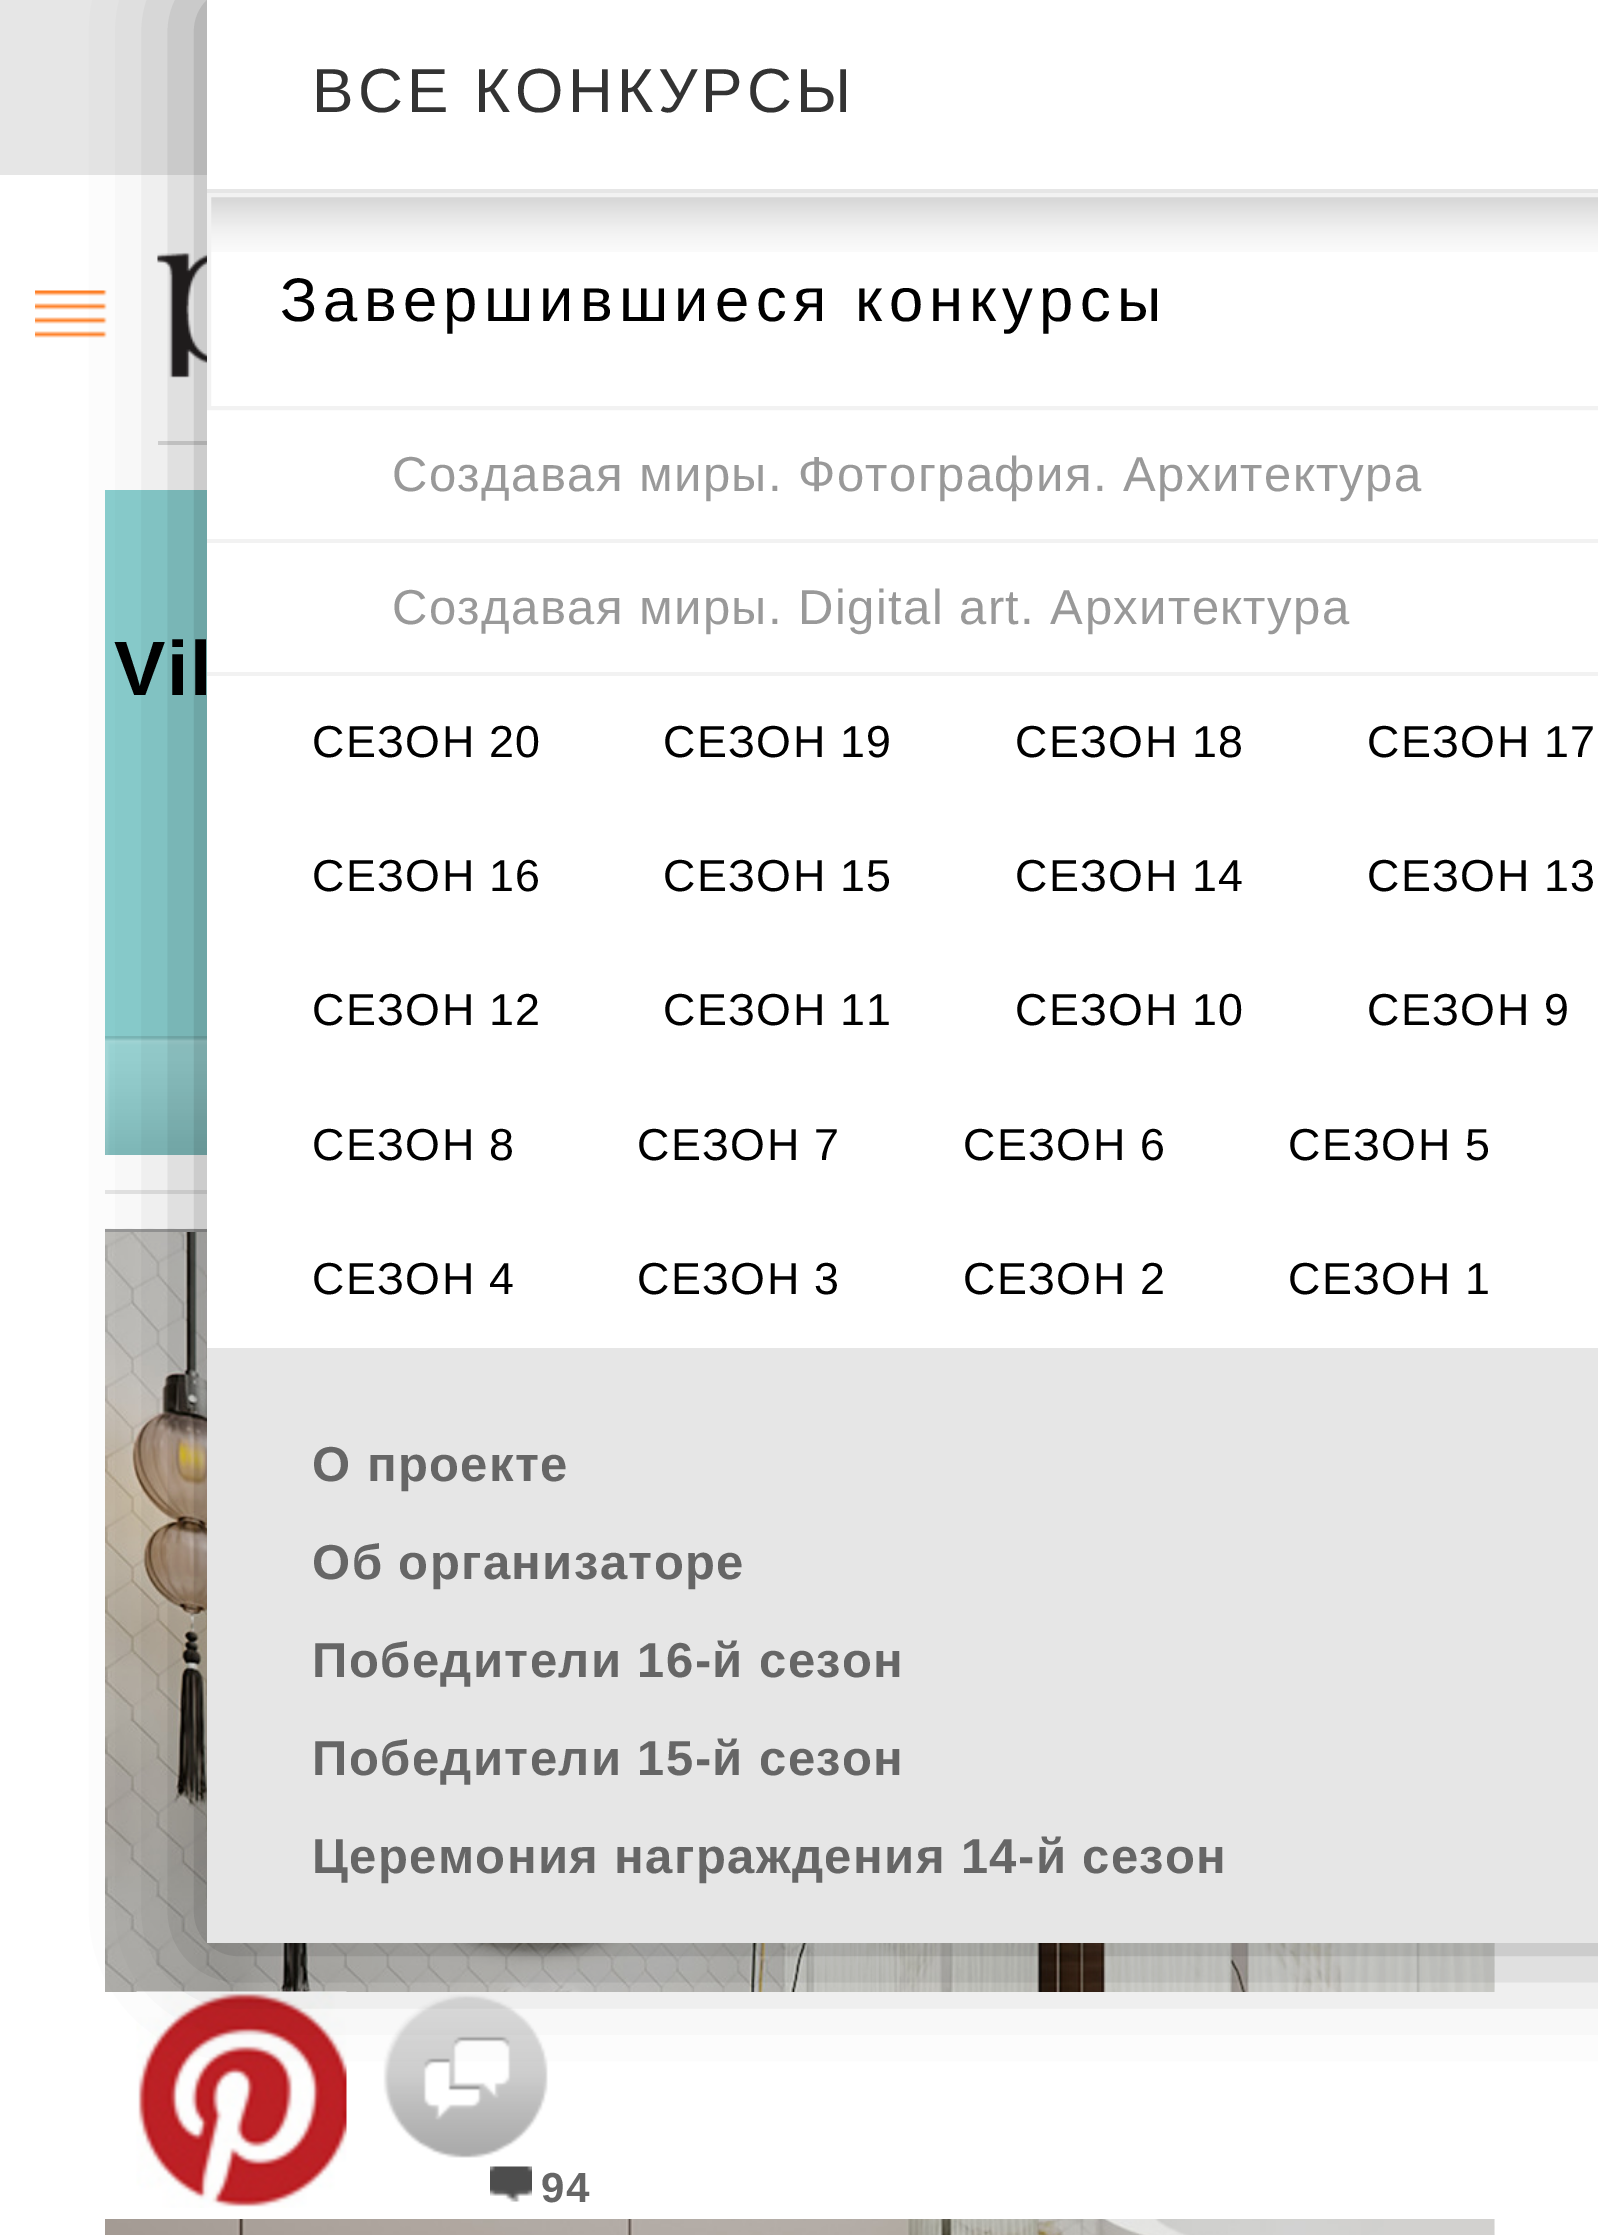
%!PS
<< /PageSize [1598 2235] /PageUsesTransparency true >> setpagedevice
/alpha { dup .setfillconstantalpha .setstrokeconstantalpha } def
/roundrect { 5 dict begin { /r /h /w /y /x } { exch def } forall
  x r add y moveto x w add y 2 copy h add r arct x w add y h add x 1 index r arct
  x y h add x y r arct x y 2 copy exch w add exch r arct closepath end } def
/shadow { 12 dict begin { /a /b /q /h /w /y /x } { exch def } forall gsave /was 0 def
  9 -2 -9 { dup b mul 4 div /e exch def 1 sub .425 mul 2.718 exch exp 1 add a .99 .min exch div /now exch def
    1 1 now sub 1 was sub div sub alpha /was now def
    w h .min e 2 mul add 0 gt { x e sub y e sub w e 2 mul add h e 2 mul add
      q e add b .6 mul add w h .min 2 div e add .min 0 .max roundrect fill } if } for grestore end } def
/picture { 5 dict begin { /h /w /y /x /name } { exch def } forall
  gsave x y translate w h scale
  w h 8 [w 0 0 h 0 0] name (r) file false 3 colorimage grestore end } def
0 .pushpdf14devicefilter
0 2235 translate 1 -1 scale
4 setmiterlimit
1 setgray
0 0 1598 2235 rectfill
0.902 setgray
0 0 207 175 rectfill
(img2.rgb) 35 290 72 48 picture
(img3.rgb) 157 252 50 126 picture
0.851 setgray
158 441 49 4 rectfill
0.902 setgray
105 1190 102 4 rectfill
0.541 0.808 0.808 setrgbcolor
105 490 102 665 rectfill
(img4.rgb) 105 1036 102 119 picture
(img5.rgb) 105 1228 1390 1007 picture
0.6 setgray
105 1229 102 3 rectfill
(img6.rgb) 105 1232 1390 1003 picture
1 setgray
105 1992 1390 227 rectfill
(img7.rgb) 136 1991 211 217 picture
(img8.rgb) 383 1994 165 164 picture
0 setgray
207 0 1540 1943 0 52.5 0.4 shadow
1 setgray
207 0 1391 1348 rectfill
0.902 setgray
207 189 1391 4 rectfill
/LiberationSans-Regular [62.25 0 0 -62.25 0 0] selectfont
0.2 setgray
312 112 moveto 4.3 0 (ВСЕ КОНКУРСЫ) ashow
(img1.rgb) 211 197 1387 55 picture
0.949 setgray
4 setlinewidth
209 195 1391 213 rectstroke
/LiberationSans-Regular [61.6 0 0 -61.6 0 0] selectfont
0 setgray
280 321 moveto 6.2 0 (Завершившиеся конкурсы) ashow
0.949 setgray
207 539 1391 4 rectfill
/LiberationSans-Regular [49 0 0 -49 0 0] selectfont
0.6 setgray
392 491 moveto 1.4 0 (Создавая миры. Фотография. Архитектура) ashow
0.949 setgray
207 672 1391 4 rectfill
0.6 setgray
392 624 moveto 1.4 0 (Создавая миры. Digital art. Архитектура) ashow
/LiberationSans-Regular [44.75 0 0 -44.75 0 0] selectfont
0 setgray
312 757 moveto 1.4 0 (СЕЗОН 20) ashow
663 757 moveto 1.4 0 (СЕЗОН 19) ashow
1015 757 moveto 1.4 0 (СЕЗОН 18) ashow
1367 757 moveto 1.4 0 (СЕЗОН 17) ashow
312 891 moveto 1.4 0 (СЕЗОН 16) ashow
663 891 moveto 1.4 0 (СЕЗОН 15) ashow
1015 891 moveto 1.4 0 (СЕЗОН 14) ashow
1367 891 moveto 1.4 0 (СЕЗОН 13) ashow
312 1025 moveto 1.4 0 (СЕЗОН 12) ashow
663 1025 moveto 1.4 0 (СЕЗОН 11) ashow
1015 1025 moveto 1.4 0 (СЕЗОН 10) ashow
1367 1025 moveto 1.4 0 (СЕЗОН 9) ashow
312 1160 moveto 1.4 0 (СЕЗОН 8) ashow
637 1160 moveto 1.4 0 (СЕЗОН 7) ashow
963 1160 moveto 1.4 0 (СЕЗОН 6) ashow
1288 1160 moveto 1.4 0 (СЕЗОН 5) ashow
312 1294 moveto 1.4 0 (СЕЗОН 4) ashow
637 1294 moveto 1.4 0 (СЕЗОН 3) ashow
963 1294 moveto 1.4 0 (СЕЗОН 2) ashow
1288 1294 moveto 1.4 0 (СЕЗОН 1) ashow
0.902 setgray
207 1348 1391 595 rectfill
/LiberationSans-Bold [49 0 0 -49 0 0] selectfont
0.4 setgray
312 1481 moveto 1.4 0 (О проекте) ashow
312 1579 moveto 1.4 0 (Об организаторе) ashow
312 1677 moveto 1.4 0 (Победители 16-й сезон) ashow
312 1775 moveto 1.4 0 (Победители 15-й сезон) ashow
312 1873 moveto 1.4 0 (Церемония награждения 14-й сезон) ashow
/LiberationSans-Bold [77 0 0 -77 0 0] selectfont
0 setgray
114 695 moveto 1.4 0 (Vil) ashow
(img9.rgb) 490 2166 42 36 picture
/LiberationSans-Bold [42 0 0 -42 0 0] selectfont
0.4 setgray
541 2202 moveto 1.4 0 (94) ashow
.poppdf14devicefilter showpage
